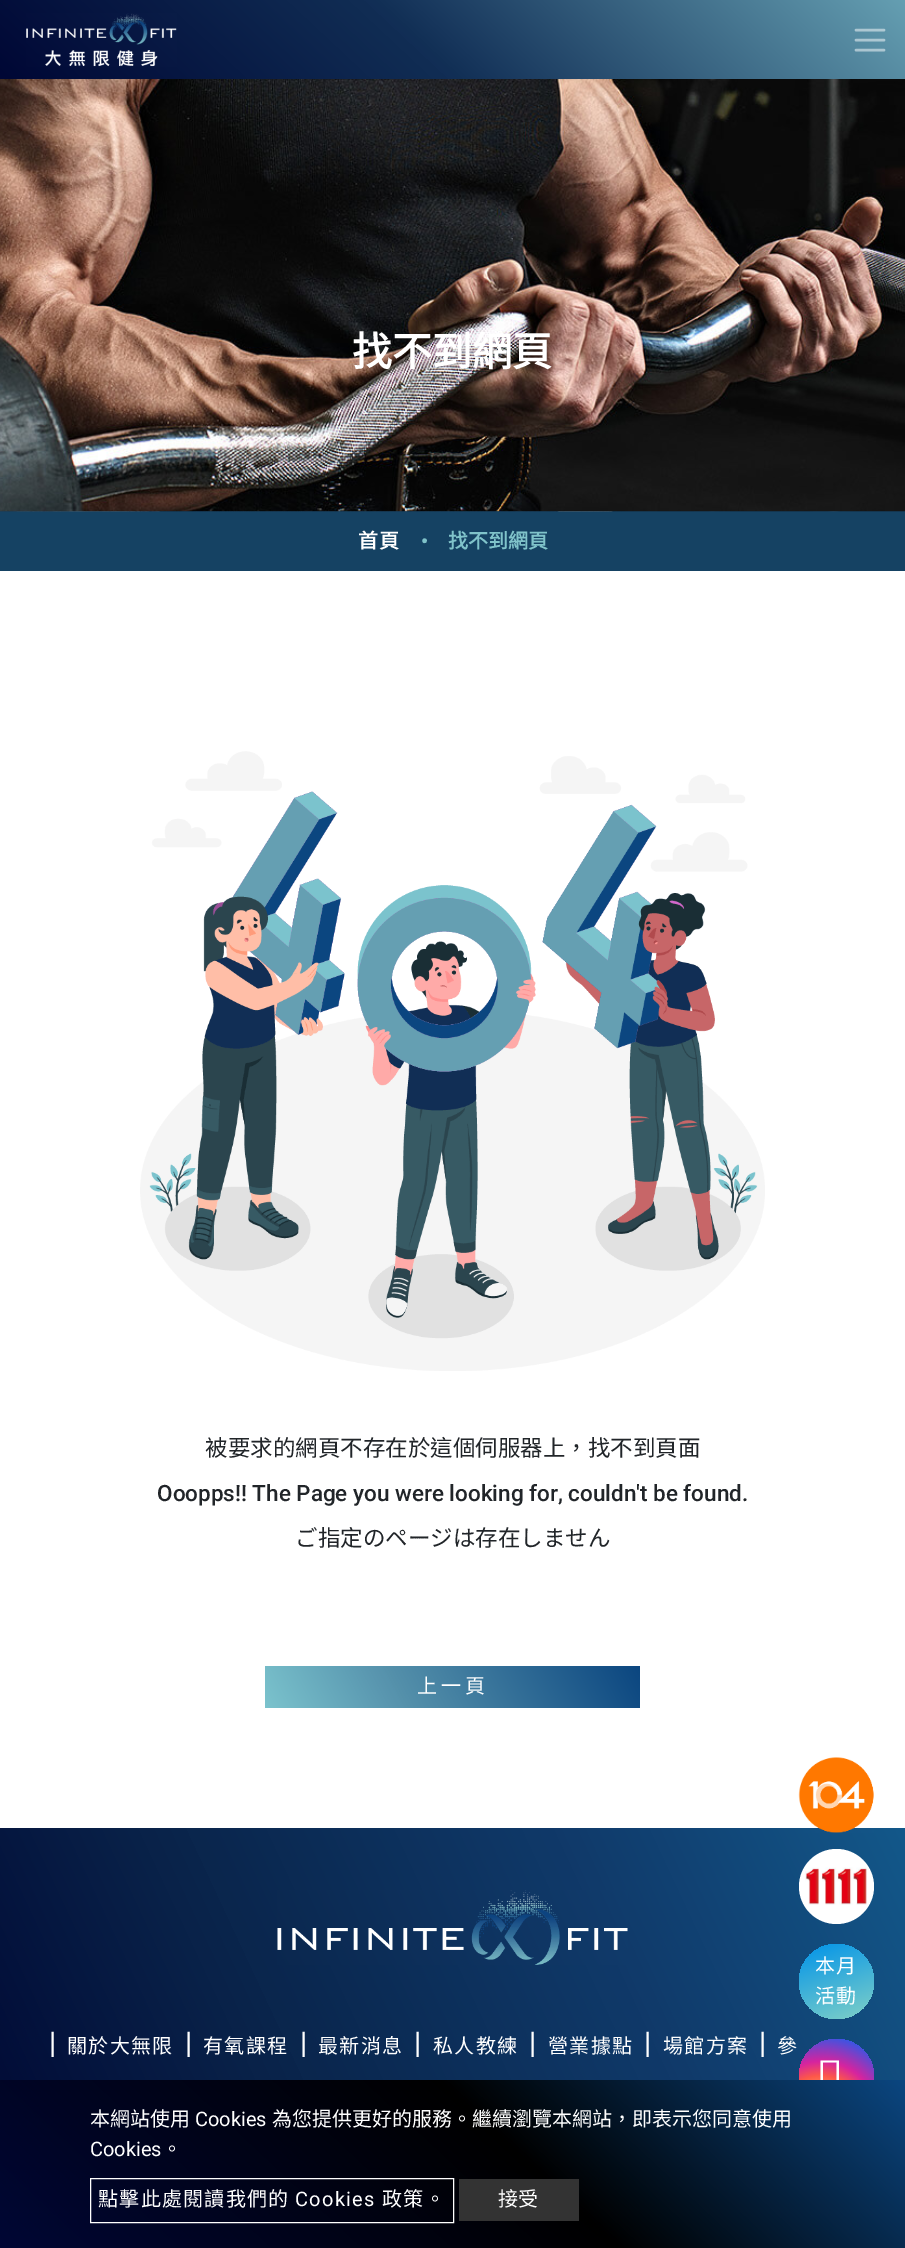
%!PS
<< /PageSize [905 2248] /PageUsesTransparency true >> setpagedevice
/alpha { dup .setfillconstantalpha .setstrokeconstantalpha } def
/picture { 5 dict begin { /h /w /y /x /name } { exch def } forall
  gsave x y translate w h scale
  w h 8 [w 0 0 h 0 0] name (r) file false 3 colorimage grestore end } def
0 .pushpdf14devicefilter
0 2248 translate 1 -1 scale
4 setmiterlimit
1 setgray
0 0 905 2248 rectfill
gsave newpath 0 0 moveto 905 0 lineto 905 79 lineto 0 79 lineto closepath clip newpath
<< /ShadingType 2 /ColorSpace /DeviceRGB /Coords [222 286 683 -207] /Extend [true true] /Function << /FunctionType 3 /Domain [0 1] /Functions [<< /FunctionType 2 /Domain [0 1] /C0 [0 0.027 0.208] /C1 [0.067 0.18 0.333] /N 1 >> << /FunctionType 2 /Domain [0 1] /C0 [0.067 0.18 0.333] /C1 [0.396 0.624 0.698] /N 1 >>] /Bounds [0.46] /Encode [0 1 0 1] >> >> shfill grestore
(img1.rgb) 26 13 151 54 picture
0.5 alpha
2.5 setlinewidth
1 setlinecap
newpath 856 30 moveto 884 30 lineto 856 40 moveto 884 40 lineto 856 50 moveto 884 50 lineto stroke
1 alpha
0.082 0.259 0.388 setrgbcolor
0 511 905 60 rectfill
(img2.rgb) 0 79 905 433 picture
/NotoSansCJKTC-Bold [40 0 0 -40 0 0] selectfont
1 setgray
352 366 moveto (找不到網頁) show
/NotoSansCJKTC-Bold [20 0 0 -20 0 0] selectfont
358 548 moveto 1.25 0 (首頁) ashow
/Roboto-Bold [20 0 0 -20 0 0] selectfont
0.502 0.765 0.792 setrgbcolor
421 548 moveto (•) show
/NotoSansCJKTC-Bold [20 0 0 -20 0 0] selectfont
448 548 moveto (找不到網頁) show
(img3.rgb) 140 751 625 620 picture
/NotoSansCJKTC-Regular [22.5 0 0 -22.5 0 0] selectfont
0.129 0.145 0.161 setrgbcolor
205 1456 moveto (被要求的網頁不存在於這個伺服器上，找不到頁面) show
/Roboto-Medium [22.5 0 0 -22.5 0 0] selectfont
157 1501 moveto (Ooopps!! The Page you were looking for, couldn't be found.) show
/NotoSansCJKTC-Regular [22.5 0 0 -22.5 0 0] selectfont
295 1546 moveto (ご指定のページは存在しません) show
gsave newpath 265 1666 moveto 640 1666 lineto 640 1708 lineto 265 1708 lineto closepath clip newpath
<< /ShadingType 2 /ColorSpace /DeviceRGB /Coords [298 1769 607 1605] /Extend [true true] /Function << /FunctionType 3 /Domain [0 1] /Functions [<< /FunctionType 2 /Domain [0 1] /C0 [0.482 0.765 0.804] /C1 [0.337 0.573 0.675] /N 1 >> << /FunctionType 2 /Domain [0 1] /C0 [0.337 0.573 0.675] /C1 [0.043 0.275 0.502] /N 1 >>] /Bounds [0.35] /Encode [0 1 0 1] >> >> shfill grestore
/NotoSansCJKTC-Regular [20 0 0 -20 0 0] selectfont
1 setgray
417 1693 moveto 4 0 (上一頁) ashow
gsave newpath 0 1828 moveto 905 1828 lineto 905 2080 lineto 0 2080 lineto closepath clip newpath
<< /ShadingType 2 /ColorSpace /DeviceRGB /Coords [-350 1499 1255 750] /Extend [true true] /Function << /FunctionType 3 /Domain [0 1] /Functions [<< /FunctionType 2 /Domain [0 1] /C0 [0 0.027 0.2] /C1 [0.039 0.149 0.302] /N 1 >> << /FunctionType 2 /Domain [0 1] /C0 [0.039 0.149 0.302] /C1 [0.063 0.227 0.416] /N 1 >> << /FunctionType 2 /Domain [0 1] /C0 [0.063 0.227 0.416] /C1 [0.078 0.361 0.561] /N 1 >> << /FunctionType 2 /Domain [0 1] /C0 [0.078 0.361 0.561] /C1 [0.4 0.624 0.698] /N 1 >>] /Bounds [0.2 0.39 0.59] /Encode [0 1 0 1 0 1 0 1] >> >> shfill grestore
gsave newpath 836.5 1981.5 37.5 0 360 arc closepath clip newpath
<< /ShadingType 2 /ColorSpace /DeviceRGB /Coords [820 1936 853 2026] /Extend [true true] /Function << /FunctionType 2 /Domain [0 1] /C0 [0 0.576 0.914] /C1 [0.502 0.816 0.78] /N 1 >> >> shfill grestore
815 1973 moveto 1.25 0 (本月) ashow
815 2003 moveto 1.25 0 (活動) ashow
gsave newpath 836.5 2076.5 37.5 0 360 arc closepath clip newpath 821 2119 translate 96 96 scale
<< /ShadingType 3 /ColorSpace /DeviceRGB /Coords [0 0 0 0 0 1] /Extend [true true] /Function << /FunctionType 3 /Domain [0 1] /Functions [<< /FunctionType 2 /Domain [0 1] /C0 [0.992 0.957 0.592] /C1 [0.992 0.957 0.592] /N 1 >> << /FunctionType 2 /Domain [0 1] /C0 [0.992 0.957 0.592] /C1 [0.992 0.349 0.286] /N 1 >> << /FunctionType 2 /Domain [0 1] /C0 [0.992 0.349 0.286] /C1 [0.839 0.141 0.624] /N 1 >> << /FunctionType 2 /Domain [0 1] /C0 [0.839 0.141 0.624] /C1 [0.157 0.353 0.922] /N 1 >> << /FunctionType 2 /Domain [0 1] /C0 [0.157 0.353 0.922] /C1 [0.157 0.353 0.922] /N 1 >>] /Bounds [0.05 0.45 0.6 0.9] /Encode [0 1 0 1 0 1 0 1 0 1] >> >> shfill grestore
newpath 820.5 2092.5 moveto 820.5 2060.5 lineto 839 2060.5 lineto 839 2092.5 lineto closepath 823 2090 moveto 836.5 2090 lineto 836.5 2062.5 lineto 823 2062.5 lineto closepath fill
(img4.rgb) 277 1890 351 75 picture
(img5.rgb) 798 1757 76 76 picture
newpath 836.5 1886.5 37.5 0 360 arc closepath fill
(img6.rgb) 805 1867 62 38 picture
/Roboto-Regular [30 0 0 -30 0 0] selectfont
49 2053 moveto (|) show
/NotoSansCJKTC-Regular [20 0 0 -20 0 0] selectfont
67 2053 moveto 1.25 0 (關於大無限) ashow
/Roboto-Regular [30 0 0 -30 0 0] selectfont
185 2053 moveto (|) show
/NotoSansCJKTC-Regular [20 0 0 -20 0 0] selectfont
203 2053 moveto 1.25 0 (有氧課程) ashow
/Roboto-Regular [30 0 0 -30 0 0] selectfont
300 2053 moveto (|) show
/NotoSansCJKTC-Regular [20 0 0 -20 0 0] selectfont
318 2053 moveto 1.25 0 (最新消息) ashow
/Roboto-Regular [30 0 0 -30 0 0] selectfont
414 2053 moveto (|) show
/NotoSansCJKTC-Regular [20 0 0 -20 0 0] selectfont
433 2053 moveto 1.25 0 (私人教練) ashow
/Roboto-Regular [30 0 0 -30 0 0] selectfont
529 2053 moveto (|) show
/NotoSansCJKTC-Regular [20 0 0 -20 0 0] selectfont
548 2053 moveto 1.25 0 (營業據點) ashow
/Roboto-Regular [30 0 0 -30 0 0] selectfont
644 2053 moveto (|) show
/NotoSansCJKTC-Regular [20 0 0 -20 0 0] selectfont
663 2053 moveto 1.25 0 (場館方案) ashow
/Roboto-Regular [30 0 0 -30 0 0] selectfont
759 2053 moveto (|) show
/NotoSansCJKTC-Regular [20 0 0 -20 0 0] selectfont
777 2053 moveto 1.25 0 (參) ashow
gsave newpath 0 2080 moveto 905 2080 lineto 905 2248 lineto 0 2248 lineto closepath clip newpath
<< /ShadingType 2 /ColorSpace /DeviceRGB /Coords [200 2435 705 1894] /Extend [true true] /Function << /FunctionType 3 /Domain [0 1] /Functions [<< /FunctionType 2 /Domain [0 1] /C0 [0 0.027 0.208] /C1 [0 0 0] /N 1 >> << /FunctionType 2 /Domain [0 1] /C0 [0 0 0] /C1 [0.043 0.275 0.502] /N 1 >>] /Bounds [0.57] /Encode [0 1 0 1] >> >> shfill grestore
90 2126 moveto (本網站使用) show
/Roboto-Regular [20 0 0 -20 0 0] selectfont
195 2126 moveto (Cookies) show
/NotoSansCJKTC-Regular [20 0 0 -20 0 0] selectfont
272 2126 moveto (為您提供更好的服務。繼續瀏覽本網站，即表示您同意使用) show
/Roboto-Regular [20 0 0 -20 0 0] selectfont
90 2156 moveto (Cookies) show
/NotoSansCJKTC-Regular [20 0 0 -20 0 0] selectfont
162 2156 moveto (。) show
1 setlinewidth
0 setlinecap
90.5 2178.5 363 44 rectstroke
98 2206 moveto 1.25 0 (點擊此處閱讀我們的) ashow
/Roboto-Regular [20 0 0 -20 0 0] selectfont
295 2206 moveto 1.25 0 (Cookies) ashow
/NotoSansCJKTC-Regular [20 0 0 -20 0 0] selectfont
382 2206 moveto 1.25 0 (政策。) ashow
0.2 setgray
459 2179 120 42 rectfill
1 setgray
498 2206 moveto (接受) show
.poppdf14devicefilter showpage
